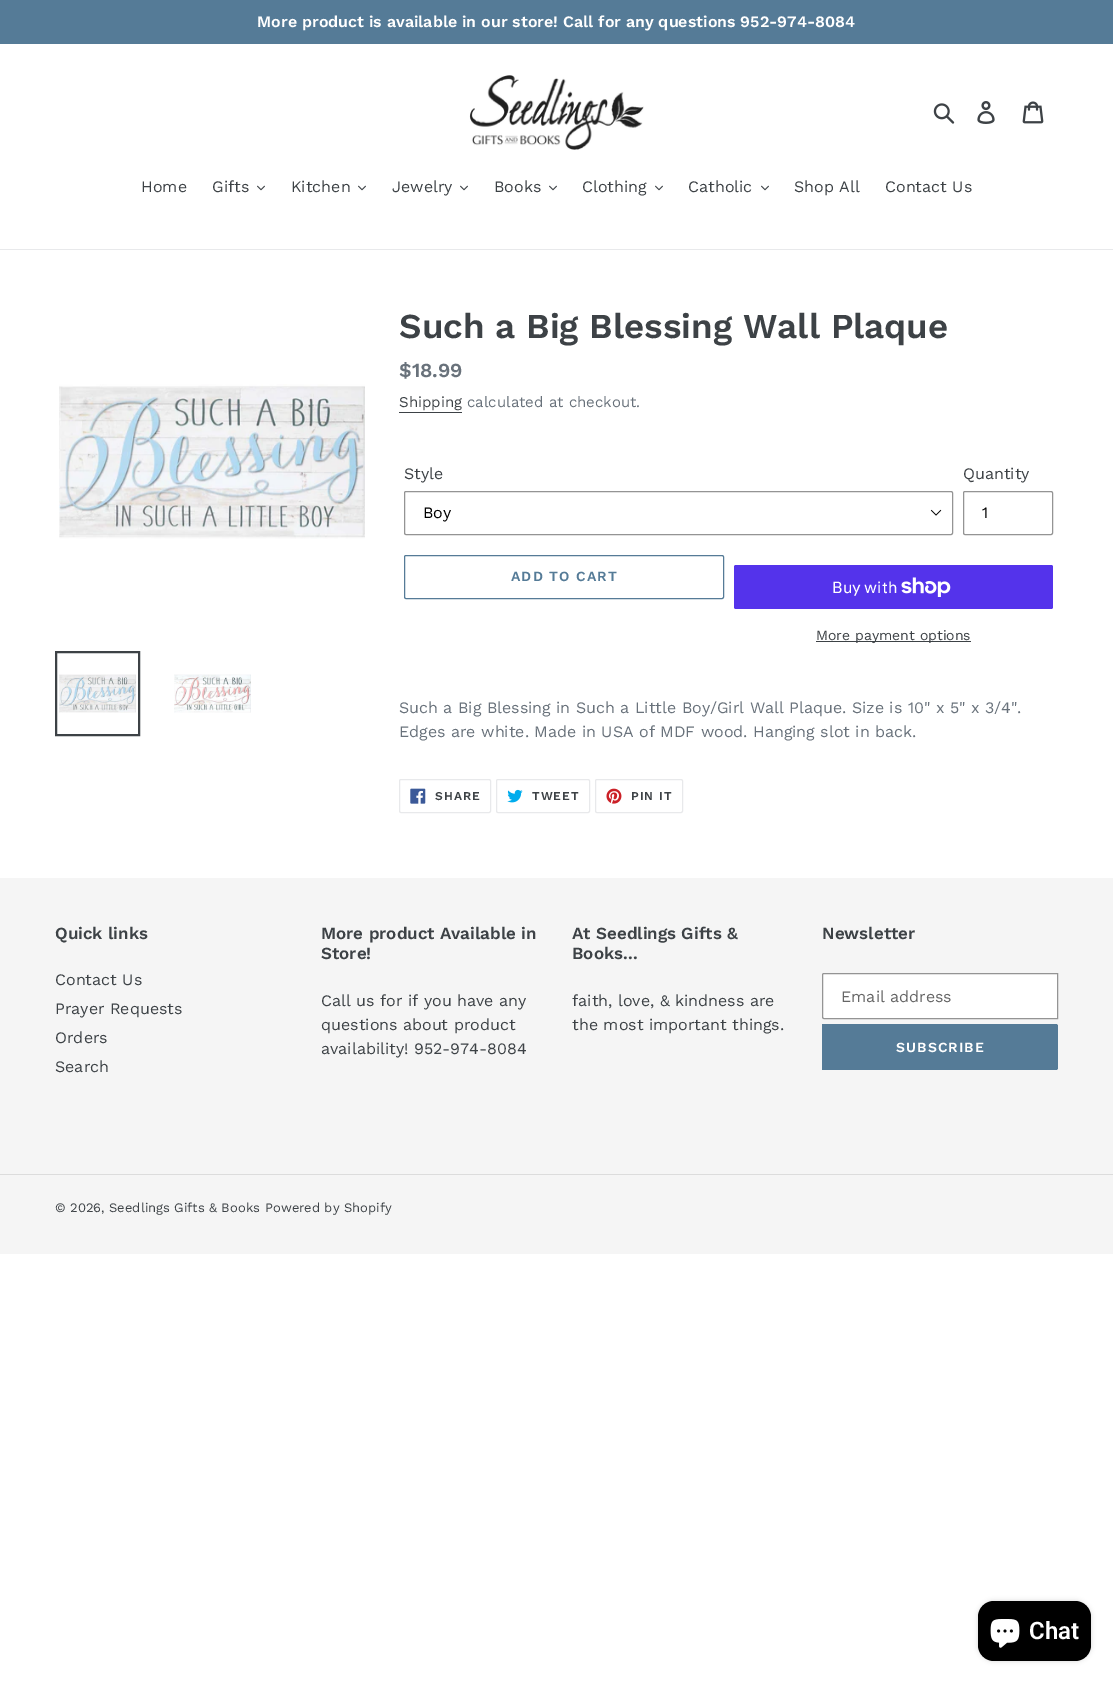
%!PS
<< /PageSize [1113 1682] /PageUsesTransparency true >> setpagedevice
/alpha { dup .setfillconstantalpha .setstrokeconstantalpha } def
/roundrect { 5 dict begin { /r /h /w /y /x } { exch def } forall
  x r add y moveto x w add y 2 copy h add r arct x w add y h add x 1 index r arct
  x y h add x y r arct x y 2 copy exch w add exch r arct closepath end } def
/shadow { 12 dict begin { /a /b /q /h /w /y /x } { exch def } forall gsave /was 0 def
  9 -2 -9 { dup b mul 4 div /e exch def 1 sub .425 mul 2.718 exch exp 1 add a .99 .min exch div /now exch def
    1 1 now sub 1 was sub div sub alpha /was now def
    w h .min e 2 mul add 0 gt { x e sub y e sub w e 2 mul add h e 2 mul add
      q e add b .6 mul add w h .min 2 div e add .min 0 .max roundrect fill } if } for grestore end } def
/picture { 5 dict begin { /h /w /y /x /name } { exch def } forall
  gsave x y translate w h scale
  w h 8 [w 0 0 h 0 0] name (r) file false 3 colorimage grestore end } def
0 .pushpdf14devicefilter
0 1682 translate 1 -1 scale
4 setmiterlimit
1 setgray
0 0 1113 1682 rectfill
0.333 0.482 0.592 setrgbcolor
0 0 1113 44 rectfill
/WorkSans-SemiBold [16 0 0 -16 0 0] selectfont
1 setgray
257 27 moveto (More product is available in our store! Call for any questions 952-974-8084) show
(img1.rgb) 469 75 175 75 picture
(img2.rgb) 933 103 22 21 picture
(img3.rgb) 977 101 18 23 picture
(img4.rgb) 1022 101 22 23 picture
0.91 0.914 0.922 setrgbcolor
0 249 1113 1 rectfill
/WorkSans-Regular [16 0 0 -16 0 0] selectfont
0.239 0.259 0.275 setrgbcolor
141 192 moveto (Home) show
212 192 moveto (Gifts) show
(img5.rgb) 257 185 8 6 picture
291 192 moveto (Kitchen) show
(img5.rgb) 358 185 8 6 picture
392 192 moveto (Jewelry) show
(img5.rgb) 460 185 8 6 picture
494 192 moveto (Books) show
(img5.rgb) 549 185 8 6 picture
582 192 moveto (Clothing) show
(img5.rgb) 655 185 8 6 picture
688 192 moveto (Catholic) show
(img5.rgb) 761 185 8 6 picture
794 192 moveto (Shop All) show
885 192 moveto (Contact Us) show
(img6.rgb) 59 384 306 155 picture
2 setlinewidth
56 652 83 83 rectstroke
(img7.rgb) 59 674 77 39 picture
(img8.rgb) 174 674 77 39 picture
/WorkSans-SemiBold [35 0 0 -35 0 0] selectfont
399 338 moveto (Such a Big Blessing Wall Plaque) show
/WorkSans-SemiBold [20 0 0 -20 0 0] selectfont
0.412 0.447 0.482 setrgbcolor
399 377 moveto ($18.99) show
/WorkSans-Regular [15 0 0 -15 0 0] selectfont
0.239 0.259 0.275 setrgbcolor
399 407 moveto (Shipping) show
399 412 63 1 rectfill
0.412 0.447 0.482 setrgbcolor
467 407 moveto (calculated at checkout.) show
/WorkSans-Regular [16 0 0 -16 0 0] selectfont
0.239 0.259 0.275 setrgbcolor
404 479 moveto (Style) show
(img9.rgb) 930 509 12 7 picture
0.58 setgray
1 setlinewidth
404.5 491.5 548 43 1.5 roundrect stroke
0 setgray
423 518 moveto (Boy) show
0.239 0.259 0.275 setrgbcolor
963 479 moveto (Quantity) show
0.58 setgray
963.5 491.5 89 43 1.5 roundrect stroke
0 setgray
982 518 moveto (1) show
0.333 0.482 0.592 setrgbcolor
404.5 555.5 319 43 1.5 roundrect stroke
/WorkSans-SemiBold [14 0 0 -14 0 0] selectfont
511 581 moveto 1.1 0 (ADD TO CART) ashow
0.329 0.2 0.922 setrgbcolor
734 565 319 44 2 roundrect fill
/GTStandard-Regular [16 0 0 -16 0 0] selectfont
1 setgray
832 593 moveto (Buy with) show
(img10.rgb) 901 577 50 20 picture
0.239 0.259 0.275 setrgbcolor
816 641 155 1 rectfill
/WorkSans-Regular [14 0 0 -14 0 0] selectfont
816 640 moveto (More payment options) show
/WorkSans-Regular [16 0 0 -16 0 0] selectfont
0.412 0.447 0.482 setrgbcolor
399 713 moveto (Such a Big Blessing in Such a Little Boy/Girl Wall Plaque. Size is 10" x 5" x 3/4".) show
399 737 moveto (Edges are white. Made in USA of MDF wood. Hanging slot in back.) show
0.91 0.914 0.922 setrgbcolor
399.5 779.5 91 33 1.5 roundrect stroke
(img11.rgb) 410 788 16 16 picture
/WorkSans-SemiBold [12 0 0 -12 0 0] selectfont
0.239 0.259 0.275 setrgbcolor
435 800 moveto 1 0 (SHARE) ashow
0.91 0.914 0.922 setrgbcolor
496.5 779.5 93 33 1.5 roundrect stroke
(img12.rgb) 507 789 16 14 picture
0.239 0.259 0.275 setrgbcolor
532 800 moveto 1 0 (TWEET) ashow
0.91 0.914 0.922 setrgbcolor
595.5 779.5 87 33 1.5 roundrect stroke
(img13.rgb) 606 788 16 16 picture
0.239 0.259 0.275 setrgbcolor
631 800 moveto 1 0 (PIN IT) ashow
0.961 setgray
0 878 1113 376 rectfill
/WorkSans-SemiBold [17 0 0 -17 0 0] selectfont
0.239 0.259 0.275 setrgbcolor
55 939 moveto (Quick links) show
/WorkSans-Regular [16 0 0 -16 0 0] selectfont
55 985 moveto (Contact Us) show
55 1014 moveto (Prayer Requests) show
55 1043 moveto (Orders) show
55 1072 moveto (Search) show
/WorkSans-SemiBold [17 0 0 -17 0 0] selectfont
321 939 moveto (More product Available in) show
321 959 moveto (Store!) show
/WorkSans-Regular [16 0 0 -16 0 0] selectfont
321 1006 moveto (Call us for if you have any) show
321 1030 moveto (questions about product) show
321 1054 moveto (availability! 952-974-8084) show
/WorkSans-SemiBold [17 0 0 -17 0 0] selectfont
572 939 moveto (At Seedlings Gifts &) show
572 959 moveto (Books...) show
/WorkSans-Regular [16 0 0 -16 0 0] selectfont
572 1006 moveto (faith, love, & kindness are) show
572 1030 moveto (the most important things.) show
/WorkSans-SemiBold [17 0 0 -17 0 0] selectfont
822 939 moveto (Newsletter) show
1 setgray
newpath 824 973.5 moveto 1057.5 973.5 lineto 1057.5 1018.5 lineto 824 1018.5 lineto 823 1018.5 822.5 1018 822.5 1017 curveto 822.5 975 lineto 822.5 974 823 973.5 824 973.5 curveto closepath gsave fill grestore
0.58 setgray
stroke
/WorkSans-Regular [16 0 0 -16 0 0] selectfont
0.4 setgray
841 1002 moveto (Email address) show
0.333 0.482 0.592 setrgbcolor
newpath 822 1024 moveto 1056 1024 lineto 1057 1024 1058 1025 1058 1026 curveto 1058 1068 lineto 1058 1069 1057 1070 1056 1070 curveto 822 1070 lineto closepath fill
/WorkSans-SemiBold [14 0 0 -14 0 0] selectfont
1 setgray
896 1052 moveto 1.1 0 (SUBSCRIBE) ashow
0.863 setgray
0 1174 1113 1 rectfill
/WorkSans-Regular [13 0 0 -13 0 0] selectfont
0.239 0.259 0.275 setrgbcolor
55 1212 moveto (© 2026, Seedlings Gifts & Books) show
265 1212 moveto (Powered by Shopify) show
0 setgray
978 1601 113 60 16 2.5 0.15 shadow
978 1601 113 60 16 roundrect fill
(img14.rgb) 990 1619 30 29 picture
/Roboto-SemiBold [24 0 0 -24 0 0] selectfont
1 setgray
1029 1639 moveto (Chat) show
.poppdf14devicefilter showpage
